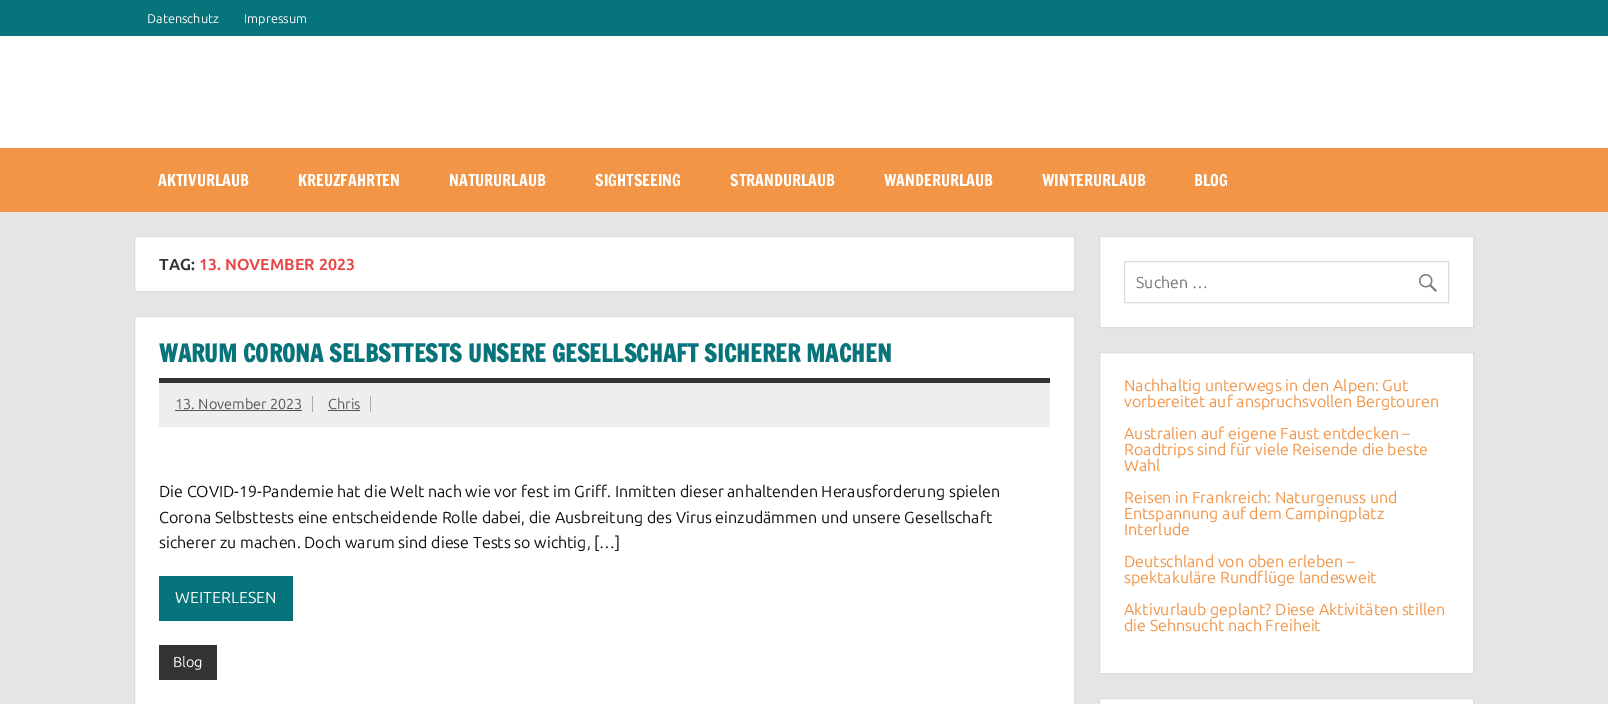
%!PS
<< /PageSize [1608 704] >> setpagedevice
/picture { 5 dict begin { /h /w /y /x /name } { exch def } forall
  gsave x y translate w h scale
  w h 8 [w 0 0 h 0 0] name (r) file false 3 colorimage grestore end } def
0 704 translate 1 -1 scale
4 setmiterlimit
0.898 setgray
0 0 1608 704 rectfill
0.027 0.451 0.478 setrgbcolor
0 0 1608 36 rectfill
/Ubuntu-Regular [12.75 0 0 -12.75 0 0] selectfont
1 setgray
147 23 moveto (Datenschutz) show
244 23 moveto (Impressum) show
0 36 1608 112 rectfill
0.949 0.584 0.275 setrgbcolor
0 148 1608 64 rectfill
/FrancoisOne-Regular [16 0 0 -16 0 0] selectfont
1 setgray
158 186 moveto (AKTIVURLAUB) show
298 186 moveto (KREUZFAHRTEN) show
449 186 moveto (NATURURLAUB) show
595 186 moveto (SIGHTSEEING) show
730 186 moveto (STRANDURLAUB) show
884 186 moveto (WANDERURLAUB) show
1042 186 moveto (WINTERURLAUB) show
1194 186 moveto (BLOG) show
newpath 134.5 236.5 moveto 1074.5 236.5 lineto 1074.5 291.5 lineto 134.5 291.5 lineto closepath gsave fill grestore
0.867 setgray
stroke
/Ubuntu-Bold [16 0 0 -16 0 0] selectfont
0.2 setgray
159 270 moveto (TAG:) show
0.91 0.278 0.278 setrgbcolor
199 270 moveto (13. NOVEMBER 2023) show
1 setgray
newpath 134.5 316.5 moveto 1074.5 316.5 lineto 1074.5 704.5 lineto 134.5 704.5 lineto closepath gsave fill grestore
0.867 setgray
stroke
0.2 setgray
159 378 891 5 rectfill
/FrancoisOne-Bold [24 0 0 -24 0 0] selectfont
0.027 0.451 0.478 setrgbcolor
159 362 moveto (WARUM CORONA SELBSTTESTS UNSERE GESELLSCHAFT SICHERER MACHEN) show
0.933 setgray
159 383 891 44 rectfill
/Ubuntu-Regular [14.5 0 0 -14.5 0 0] selectfont
0.333 setgray
175 409 moveto (13. November 2023) show
0.667 setgray
312 396 1 16 rectfill
0.333 setgray
175 410 127 1 rectfill
328 409 moveto (Chris) show
0.667 setgray
370 396 1 16 rectfill
0.333 setgray
328 410 32 1 rectfill
/Ubuntu-Regular [16 0 0 -16 0 0] selectfont
0.067 setgray
159 497 moveto (Die COVID-19-Pandemie hat die Welt nach wie vor fest im Griff. Inmitten dieser anhaltenden Herausforderung spielen) show
159 523 moveto (Corona Selbsttests eine entscheidende Rolle dabei, die Ausbreitung des Virus einzudämmen und unsere Gesellschaft) show
159 548 moveto (sicherer zu machen. Doch warum sind diese Tests so wichtig, […]) show
0.027 0.451 0.478 setrgbcolor
159 576 134 45 rectfill
1 setgray
175 603 moveto (WEITERLESEN) show
0.2 setgray
159 645 58 35 rectfill
/Ubuntu-Regular [14.5 0 0 -14.5 0 0] selectfont
1 setgray
173 667 moveto (Blog) show
newpath 1099.5 236.5 moveto 1473.5 236.5 lineto 1473.5 327.5 lineto 1099.5 327.5 lineto closepath gsave fill grestore
0.867 setgray
stroke
1124.5 261.5 324 41 rectstroke
/Ubuntu-Regular [16 0 0 -16 0 0] selectfont
0.459 setgray
1136 288 moveto (Suchen …) show
(img1.rgb) 1419 274 18 18 picture
1 setgray
newpath 1099.5 352.5 moveto 1473.5 352.5 lineto 1473.5 673.5 lineto 1099.5 673.5 lineto closepath gsave fill grestore
0.867 setgray
stroke
0.949 0.584 0.275 setrgbcolor
1124 391 moveto (Nachhaltig unterwegs in den Alpen: Gut) show
1124 407 moveto (vorbereitet auf anspruchsvollen Bergtouren) show
1124 439 moveto (Australien auf eigene Faust entdecken –) show
1124 455 moveto (Roadtrips sind für viele Reisende die beste) show
1124 471 moveto (Wahl) show
1124 503 moveto (Reisen in Frankreich: Naturgenuss und) show
1124 519 moveto (Entspannung auf dem Campingplatz) show
1124 535 moveto (Interlude) show
1124 567 moveto (Deutschland von oben erleben –) show
1124 583 moveto (spektakuläre Rundflüge landesweit) show
1124 615 moveto (Aktivurlaub geplant? Diese Aktivitäten stillen) show
1124 631 moveto (die Sehnsucht nach Freiheit) show
1 setgray
newpath 1099.5 698.5 moveto 1473.5 698.5 lineto 1473.5 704.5 lineto 1099.5 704.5 lineto closepath gsave fill grestore
0.867 setgray
stroke
showpage
